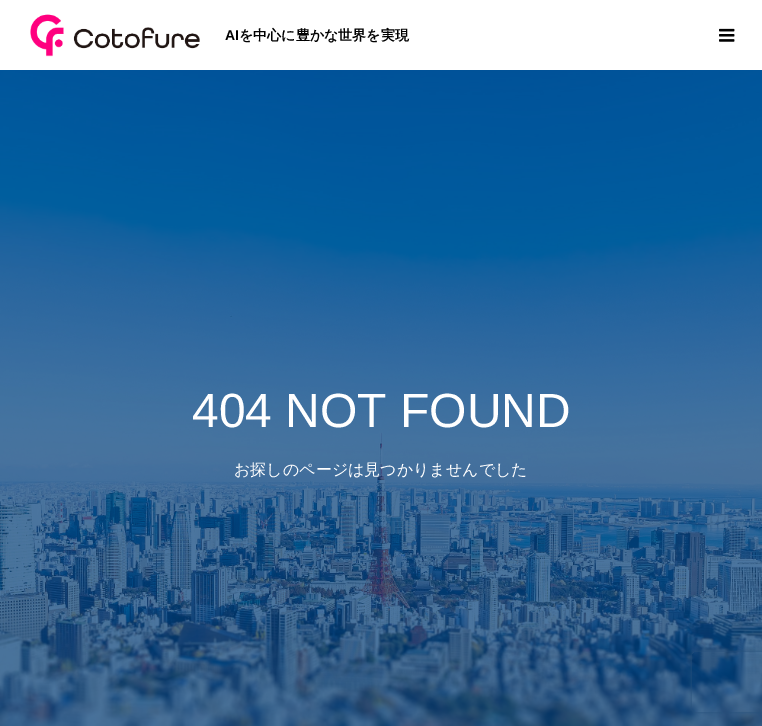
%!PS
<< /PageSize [762 726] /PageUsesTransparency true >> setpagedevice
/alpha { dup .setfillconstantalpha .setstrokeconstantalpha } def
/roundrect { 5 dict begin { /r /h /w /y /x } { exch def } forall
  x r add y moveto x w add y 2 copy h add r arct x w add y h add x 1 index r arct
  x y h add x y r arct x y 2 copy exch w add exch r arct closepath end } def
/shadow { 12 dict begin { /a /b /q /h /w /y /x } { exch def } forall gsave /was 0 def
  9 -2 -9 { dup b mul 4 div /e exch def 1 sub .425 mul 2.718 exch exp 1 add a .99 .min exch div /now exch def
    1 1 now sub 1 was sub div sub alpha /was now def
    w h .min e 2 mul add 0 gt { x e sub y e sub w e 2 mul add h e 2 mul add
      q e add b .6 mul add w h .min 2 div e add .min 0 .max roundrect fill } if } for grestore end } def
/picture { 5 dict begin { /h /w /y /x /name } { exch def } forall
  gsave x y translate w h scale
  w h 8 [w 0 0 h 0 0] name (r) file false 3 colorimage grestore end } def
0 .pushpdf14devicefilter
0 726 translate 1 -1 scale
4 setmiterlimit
1 setgray
0 0 762 726 rectfill
(img1.rgb) 30 14 170 43 picture
/LiberationSans-Bold [14 0 0 -14 0 0] selectfont
0 setgray
225 40 moveto (AI) show
/WenQuanYiZenHei-Bold [14 0 0 -14 0 0] selectfont
239 40 moveto (を中心に豊かな世界を実現) show
(img2.rgb) 719 28 16 14 picture
(img3.rgb) 0 70 762 656 picture
/LiberationSans-Regular [48 0 0 -48 0 0] selectfont
1 setgray
192 427 moveto (404 NOT FOUND) show
/WenQuanYiZenHei-Medium [16 0 0 -16 0 0] selectfont
234 475 moveto (お探しのページは見つかりませんでした) show
gsave
newpath 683 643 moveto 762 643 lineto 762 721 lineto 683 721 lineto closepath 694 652 moveto 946 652 lineto 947 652 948 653 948 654 curveto 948 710 lineto 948 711 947 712 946 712 curveto 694 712 lineto 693 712 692 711 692 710 curveto 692 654 lineto 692 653 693 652 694 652 curveto closepath eoclip newpath
0.149 0.314 0.482 setrgbcolor
692 652 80 60 2 2.5 1 shadow
grestore
.poppdf14devicefilter showpage
